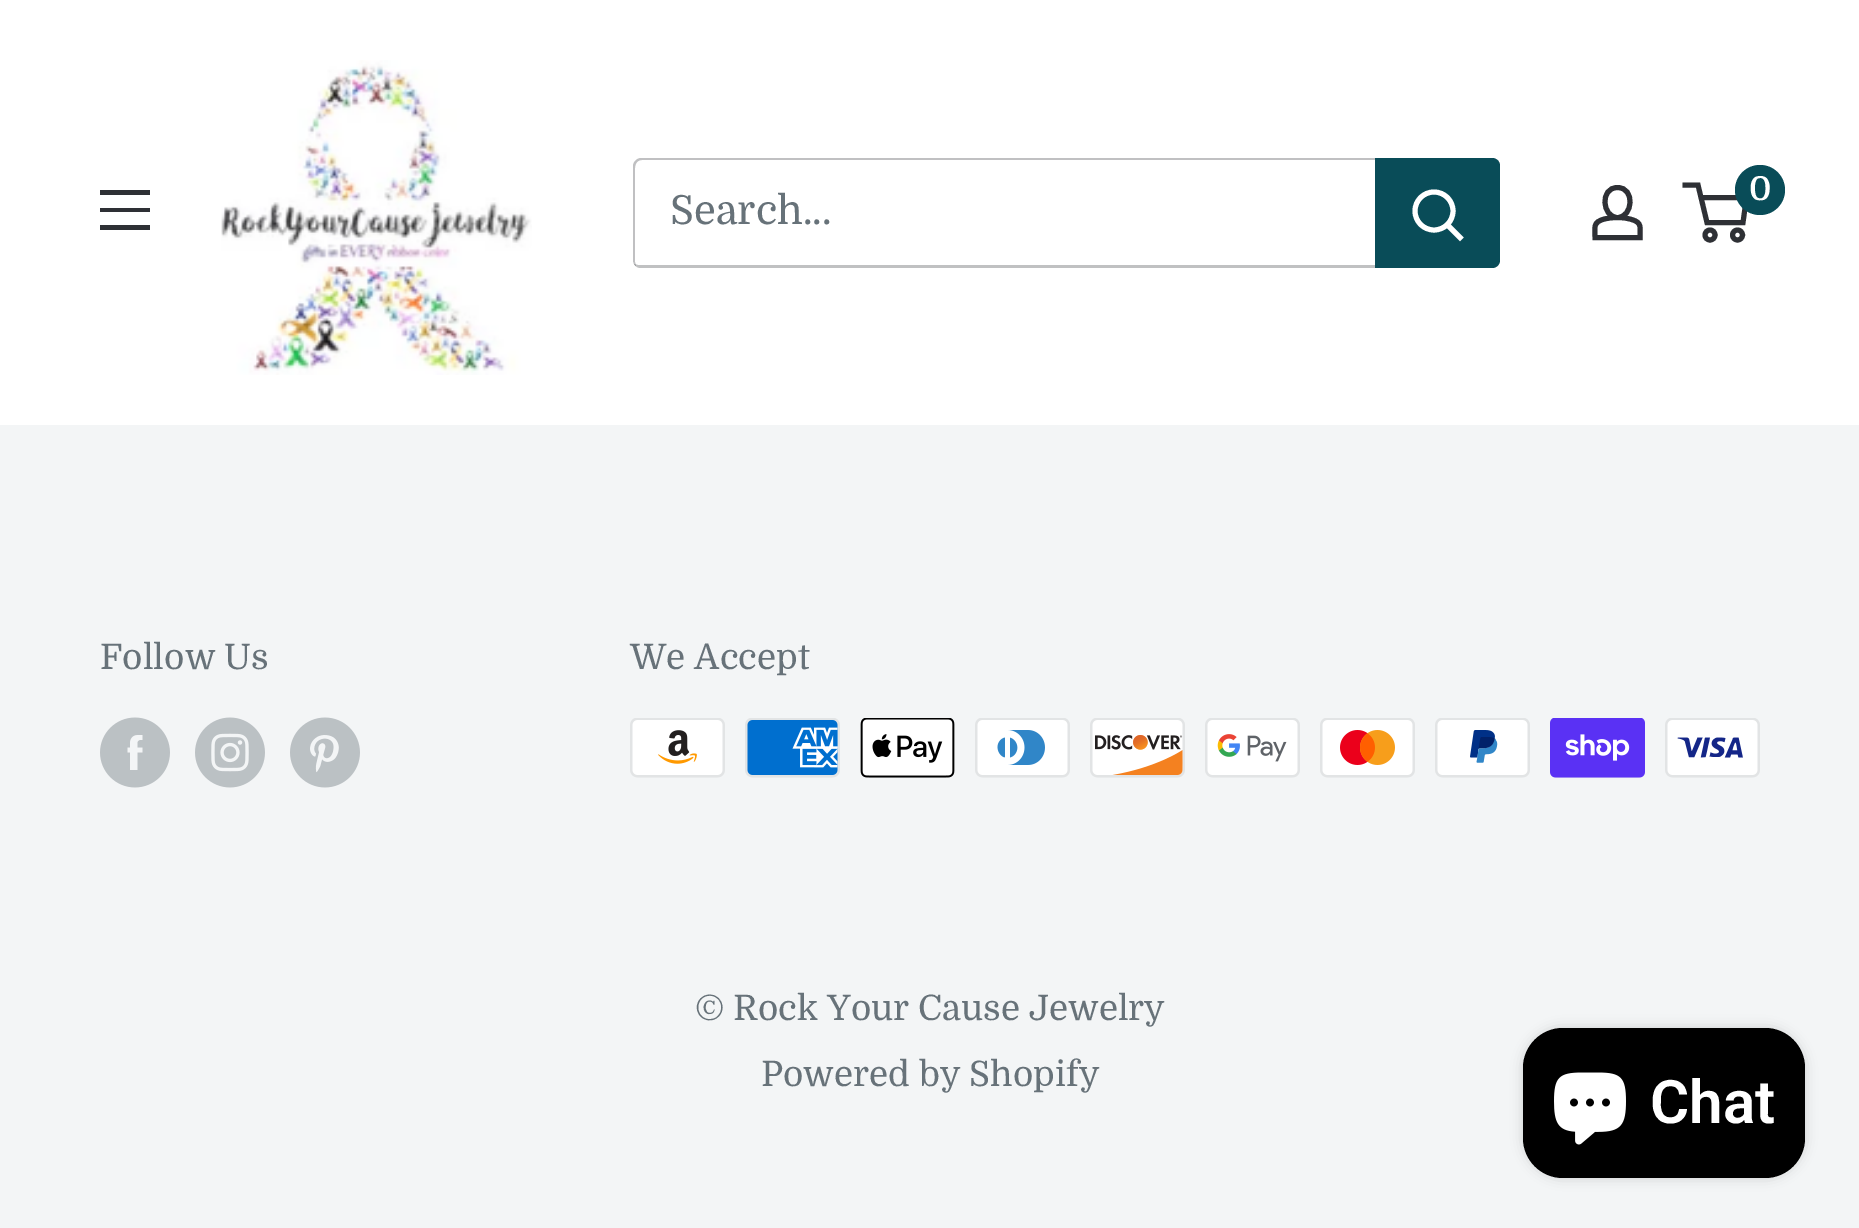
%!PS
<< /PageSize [1859 1228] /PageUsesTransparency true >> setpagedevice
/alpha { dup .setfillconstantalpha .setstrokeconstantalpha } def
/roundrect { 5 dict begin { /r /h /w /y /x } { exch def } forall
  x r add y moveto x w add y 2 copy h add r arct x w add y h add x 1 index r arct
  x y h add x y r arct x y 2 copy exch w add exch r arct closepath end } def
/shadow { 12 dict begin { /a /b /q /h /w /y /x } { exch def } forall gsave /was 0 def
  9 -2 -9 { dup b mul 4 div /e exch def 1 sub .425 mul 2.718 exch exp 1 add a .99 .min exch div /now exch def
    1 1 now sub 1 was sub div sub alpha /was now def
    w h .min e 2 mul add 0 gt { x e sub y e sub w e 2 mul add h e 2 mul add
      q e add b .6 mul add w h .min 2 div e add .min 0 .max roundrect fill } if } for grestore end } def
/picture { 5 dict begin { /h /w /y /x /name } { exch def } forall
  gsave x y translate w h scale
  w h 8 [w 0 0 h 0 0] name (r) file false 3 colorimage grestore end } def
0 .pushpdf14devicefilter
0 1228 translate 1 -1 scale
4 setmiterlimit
0.953 0.961 0.965 setrgbcolor
0 0 1859 1228 rectfill
1 setgray
0 0 1859 425 rectfill
0.18 0.188 0.208 setrgbcolor
newpath 100 225 moveto 150 225 lineto 150 230 lineto 100 230 lineto closepath 100 190 moveto 150 190 lineto 150 195 lineto 100 195 lineto closepath 100 208 moveto 150 208 lineto 150 212 lineto 100 212 lineto closepath eofill
(img1.rgb) 221 60 311 315 picture
0.753 0.757 0.761 setrgbcolor
newpath 634 264 moveto 636 267 638 268 641 268 curveto 1492 268 lineto 1496 268 1500 264 1500 260 curveto 1500 166 lineto 1500 164 1499 162 1498 160 curveto 1498 242 lineto 1498 248 1502 265 1490 265 curveto 638 265 lineto closepath fill
0.3 alpha
0.18 0.188 0.208 setrgbcolor
newpath 642 160 moveto 1495 160 lineto 1498 161 lineto 1496 159 1494 158 1492 158 curveto 641 158 lineto 637 158 633 162 633 166 curveto 633 260 lineto 633 262 634 265 636 266 curveto 635 262 lineto 635 168 lineto 635 163 638 160 642 160 curveto closepath fill
/Domine-Regular [40 0 0 -40 0 0] selectfont
1 alpha
0.404 0.447 0.475 setrgbcolor
670 224 moveto (Search...) show
0.035 0.298 0.345 setrgbcolor
newpath 1375 158 moveto 1492 158 lineto 1496.5 158 1500 161.5 1500 166 curveto 1500 260 lineto 1500 264.5 1496.5 268 1492 268 curveto 1375 268 lineto closepath fill
1 setgray
5 setlinewidth
2 setlinecap
newpath 1460 237.5 moveto 1447.5 225 lineto stroke
0 setlinecap
newpath 1434 211 19 0 360 arc closepath stroke
0.18 0.188 0.208 setrgbcolor
newpath 1617.5 217.5 moveto 1622 217.5 1627 218 1631.5 219.5 curveto 1642.5 222.5 1640 228 1640 237.5 curveto 1595 237.5 lineto 1595 227.5 1592.5 222 1604.5 219 curveto 1608.5 218 1613 217.5 1617.5 217.5 curveto closepath 1617.5 217.5 moveto 1602 217.5 1599.5 187.5 1617.5 187.5 curveto 1635.5 187.5 1633 217.5 1617.5 217.5 curveto closepath stroke
newpath 1710 235 5 0 360 arc closepath stroke
newpath 1737.5 235 5 0 360 arc closepath stroke
newpath 1701 197.5 moveto 1746.5 197.5 lineto 1743 222.5 lineto 1707 222.5 lineto 1698 185 lineto 1682.5 185 lineto stroke
0.035 0.298 0.345 setrgbcolor
newpath 1760 190 25 0 360 arc closepath fill
/Domine-SemiBold [33 0 0 -33 0 0] selectfont
1 setgray
1749 200 moveto (0) show
/Domine-Regular [35 0 0 -35 0 0] selectfont
0.404 0.447 0.475 setrgbcolor
100 669 moveto (Follow Us) show
(img2.rgb) 100 717 70 71 picture
(img3.rgb) 195 717 70 71 picture
(img4.rgb) 290 717 70 71 picture
630 669 moveto (We Accept) show
(img5.rgb) 630 718 95 60 picture
(img6.rgb) 745 718 95 60 picture
(img7.rgb) 860 718 95 60 picture
(img8.rgb) 975 718 95 60 picture
(img9.rgb) 1090 718 95 60 picture
(img10.rgb) 1205 718 95 60 picture
(img11.rgb) 1320 718 95 60 picture
(img12.rgb) 1435 718 95 60 picture
(img13.rgb) 1550 718 95 60 picture
(img14.rgb) 1665 718 95 60 picture
695 1020 moveto (© Rock Your Cause Jewelry) show
761 1086 moveto (Powered by Shopify) show
0 setgray
1523 1028 282 150 40 6 0.15 shadow
1523 1028 282 150 40 roundrect fill
(img15.rgb) 1554 1072 72 73 picture
/Roboto-SemiBold [60 0 0 -60 0 0] selectfont
1 setgray
1650 1123 moveto (Chat) show
.poppdf14devicefilter showpage
